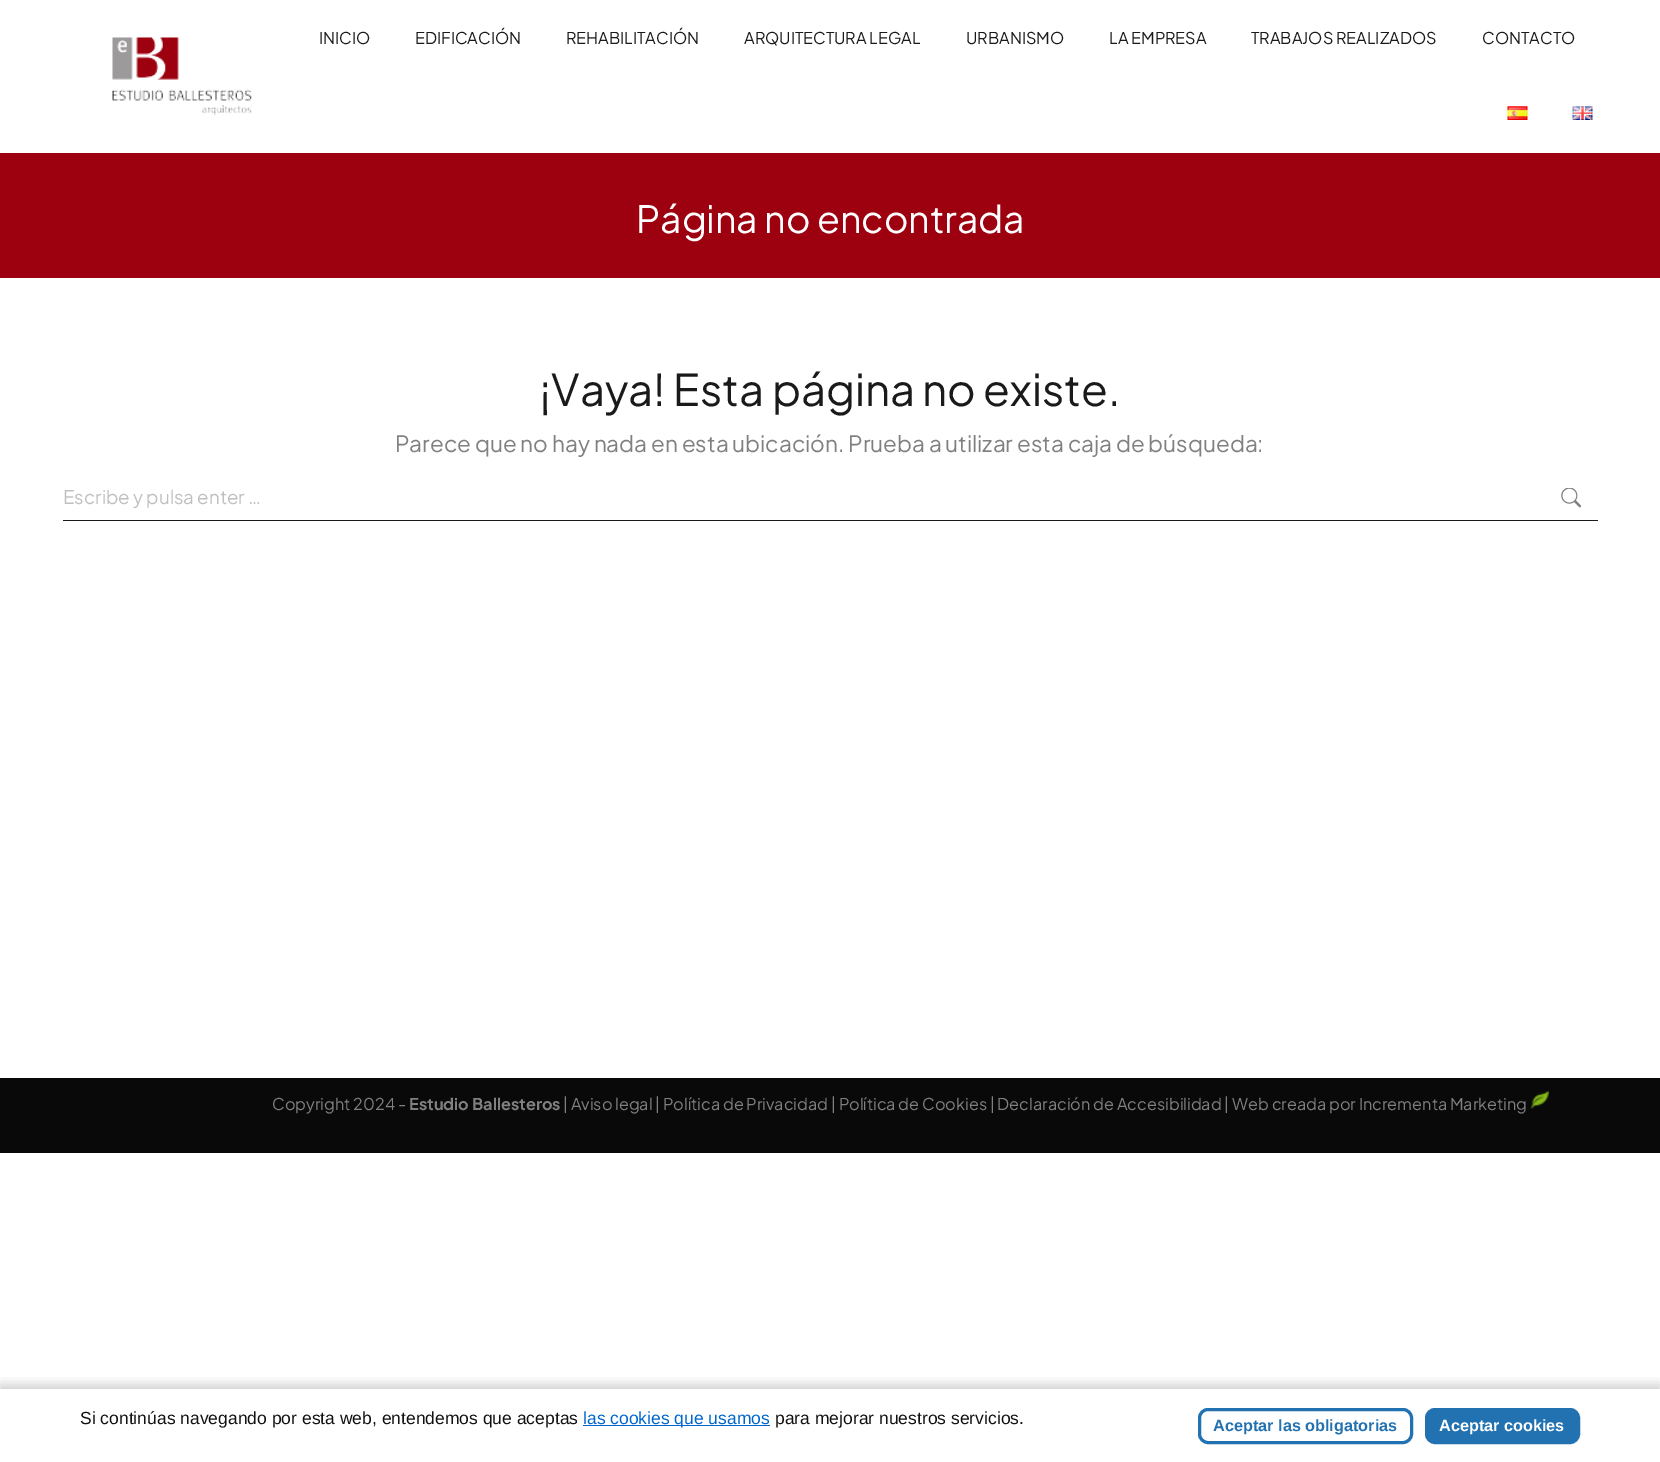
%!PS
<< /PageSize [1660 1462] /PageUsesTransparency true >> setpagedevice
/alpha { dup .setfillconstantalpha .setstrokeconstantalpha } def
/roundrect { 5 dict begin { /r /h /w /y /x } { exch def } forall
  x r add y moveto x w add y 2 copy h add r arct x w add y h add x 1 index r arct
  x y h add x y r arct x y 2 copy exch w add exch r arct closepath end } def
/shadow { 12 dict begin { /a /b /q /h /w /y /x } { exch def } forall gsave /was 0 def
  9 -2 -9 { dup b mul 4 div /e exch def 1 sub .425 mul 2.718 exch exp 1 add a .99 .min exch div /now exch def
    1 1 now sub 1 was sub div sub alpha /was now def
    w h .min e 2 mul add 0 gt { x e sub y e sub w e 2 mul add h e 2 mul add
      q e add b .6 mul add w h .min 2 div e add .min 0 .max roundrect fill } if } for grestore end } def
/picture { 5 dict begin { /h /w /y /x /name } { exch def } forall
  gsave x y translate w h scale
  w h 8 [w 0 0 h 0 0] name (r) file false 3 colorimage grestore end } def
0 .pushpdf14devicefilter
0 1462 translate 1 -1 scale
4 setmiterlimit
1 setgray
0 0 1660 1462 rectfill
(img1.rgb) 112 37 140 78 picture
/PlusJakartaSans-Regular [16.25 0 0 -16.25 0 0] selectfont
0.102 setgray
319 44 moveto (INICIO) show
415 44 moveto (EDIFICACIÓN) show
566 44 moveto (REHABILITACIÓN) show
744 44 moveto (ARQUITECTURA LEGAL) show
966 44 moveto (URBANISMO) show
1109 44 moveto (LA EMPRESA) show
1251 44 moveto (TRABAJOS REALIZADOS) show
1482 44 moveto (CONTACTO) show
(img2.rgb) 1507 106 21 14 picture
(img3.rgb) 1572 106 21 14 picture
0.616 0.004 0.059 setrgbcolor
0 153 1660 125 rectfill
/PlusJakartaSans-Regular [37.5 0 0 -37.5 0 0] selectfont
1 setgray
636 233 moveto (Página no encontrada) show
/PlusJakartaSans-Regular [43.75 0 0 -43.75 0 0] selectfont
0.102 setgray
539 406 moveto (¡Vaya! Esta página no existe.) show
/PlusJakartaSans-Regular [22.5 0 0 -22.5 0 0] selectfont
0.502 setgray
395 452 moveto (Parece que no hay nada en esta ubicación. Prueba a utilizar esta caja de búsqueda:) show
0.102 setgray
63 520 1535 1 rectfill
/PlusJakartaSans-Regular [18.75 0 0 -18.75 0 0] selectfont
0.753 setgray
63 504 moveto (Escribe y pulsa enter …) show
(img4.rgb) 1561 488 20 20 picture
0.039 0.035 0.035 setrgbcolor
0 1078 1660 75 rectfill
/PlusJakartaSans-Regular [16.25 0 0 -16.25 0 0] selectfont
0.502 setgray
272 1110 moveto (Copyright 2024 -) show
/PlusJakartaSans-Bold [16.25 0 0 -16.25 0 0] selectfont
409 1110 moveto (Estudio Ballesteros) show
/PlusJakartaSans-Regular [16.25 0 0 -16.25 0 0] selectfont
563 1110 moveto (| Aviso legal | Política de Privacidad | Política de Cookies | Declaración de Accesibilidad | Web creada por Incrementa Marketing) show
(img5.rgb) 1530 1091 19 18 picture
gsave
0 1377 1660 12 rectclip
0 setgray
0 1385 1660 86 0 6 0.2 shadow
grestore
/LiberationSans-Regular [17.5 0 0 -17.5 0 0] selectfont
0.067 setgray
80 1424 moveto (Si continúas navegando por esta web, entendemos que aceptas) show
0 0.4 0.8 setrgbcolor
583 1425 187 1 rectfill
583 1424 moveto (las cookies que usamos) show
0.067 setgray
775 1424 moveto (para mejorar nuestros servicios.) show
0.133 0.443 0.694 setrgbcolor
3 setlinewidth
1199.5 1409.5 212 33 8.5 roundrect stroke
/LiberationSans-Bold [16.25 0 0 -16.25 0 0] selectfont
1213 1431 moveto (Aceptar las obligatorias) show
1426.5 1409.5 152 33 8.5 roundrect gsave fill grestore
stroke
1 setgray
1439 1431 moveto (Aceptar cookies) show
.poppdf14devicefilter showpage
